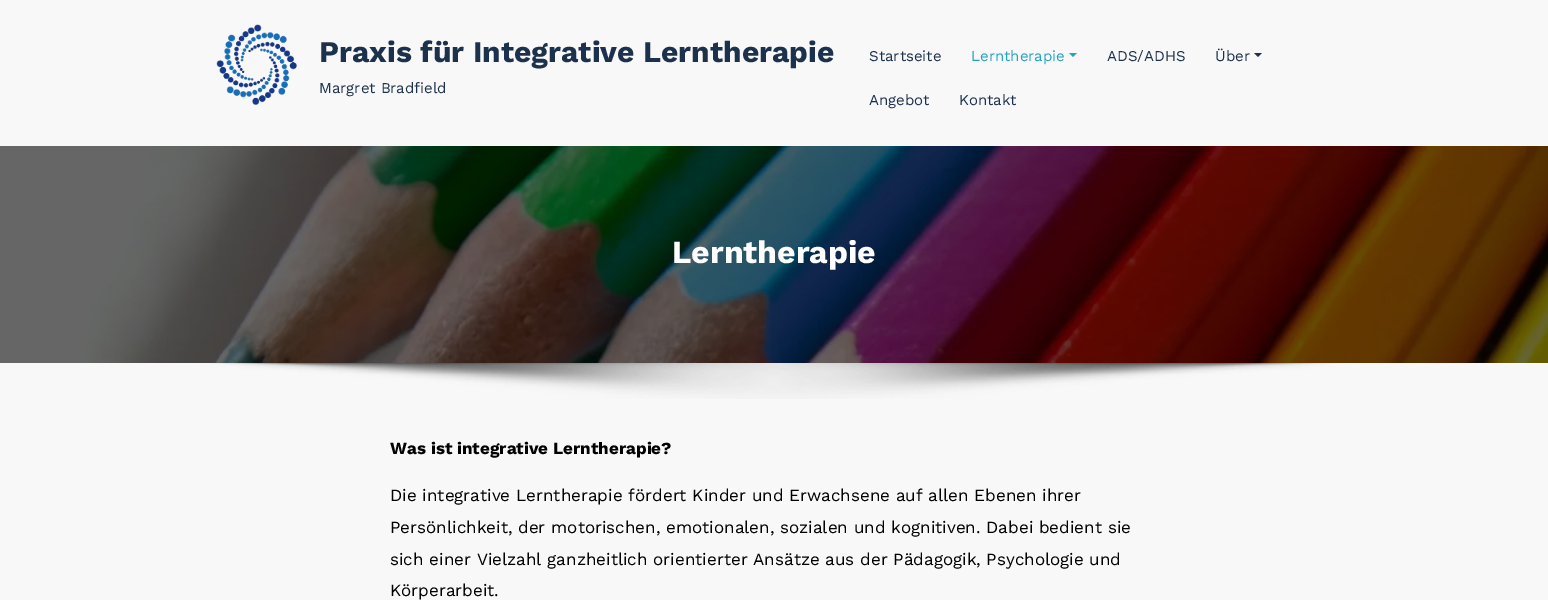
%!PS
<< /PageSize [1548 600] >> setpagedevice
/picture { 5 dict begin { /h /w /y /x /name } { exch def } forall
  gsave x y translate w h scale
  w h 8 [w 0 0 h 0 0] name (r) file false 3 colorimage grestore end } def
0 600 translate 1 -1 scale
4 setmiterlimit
0.973 setgray
0 0 1548 600 rectfill
(img1.rgb) 216 24 81 82 picture
/WorkSans-Bold [30 0 0 -30 0 0] selectfont
0.11 0.192 0.298 setrgbcolor
319 62 moveto (Praxis für Integrative Lerntherapie) show
/WorkSans-Regular [15 0 0 -15 0 0] selectfont
319 93 moveto (Margret Bradfield) show
869 61 moveto (Startseite) show
0.133 0.635 0.769 setrgbcolor
971 61 moveto (Lerntherapie) show
newpath 1069 53 moveto 1077 53 lineto 1073 57 lineto closepath fill
0.11 0.192 0.298 setrgbcolor
1107 61 moveto (ADS/ADHS) show
1215 61 moveto (Über) show
newpath 1254 53 moveto 1262 53 lineto 1258 57 lineto closepath fill
869 105 moveto (Angebot) show
959 105 moveto (Kontakt) show
(img2.rgb) 0 146 1548 217 picture
/WorkSans-Bold [32 0 0 -32 0 0] selectfont
1 setgray
672 263 moveto (Lerntherapie) show
(img3.rgb) 210 363 1127 36 picture
/WorkSans-Bold [17 0 0 -17 0 0] selectfont
0 setgray
390 454 moveto (Was ist integrative Lerntherapie?) show
/WorkSans-Regular [17 0 0 -17 0 0] selectfont
390 501 moveto (Die integrative Lerntherapie fördert Kinder und Erwachsene auf allen Ebenen ihrer) show
390 533 moveto (Persönlichkeit, der motorischen, emotionalen, sozialen und kognitiven. Dabei bedient sie) show
390 565 moveto (sich einer Vielzahl ganzheitlich orientierter Ansätze aus der Pädagogik, Psychologie und) show
390 596 moveto (Körperarbeit.) show
showpage
